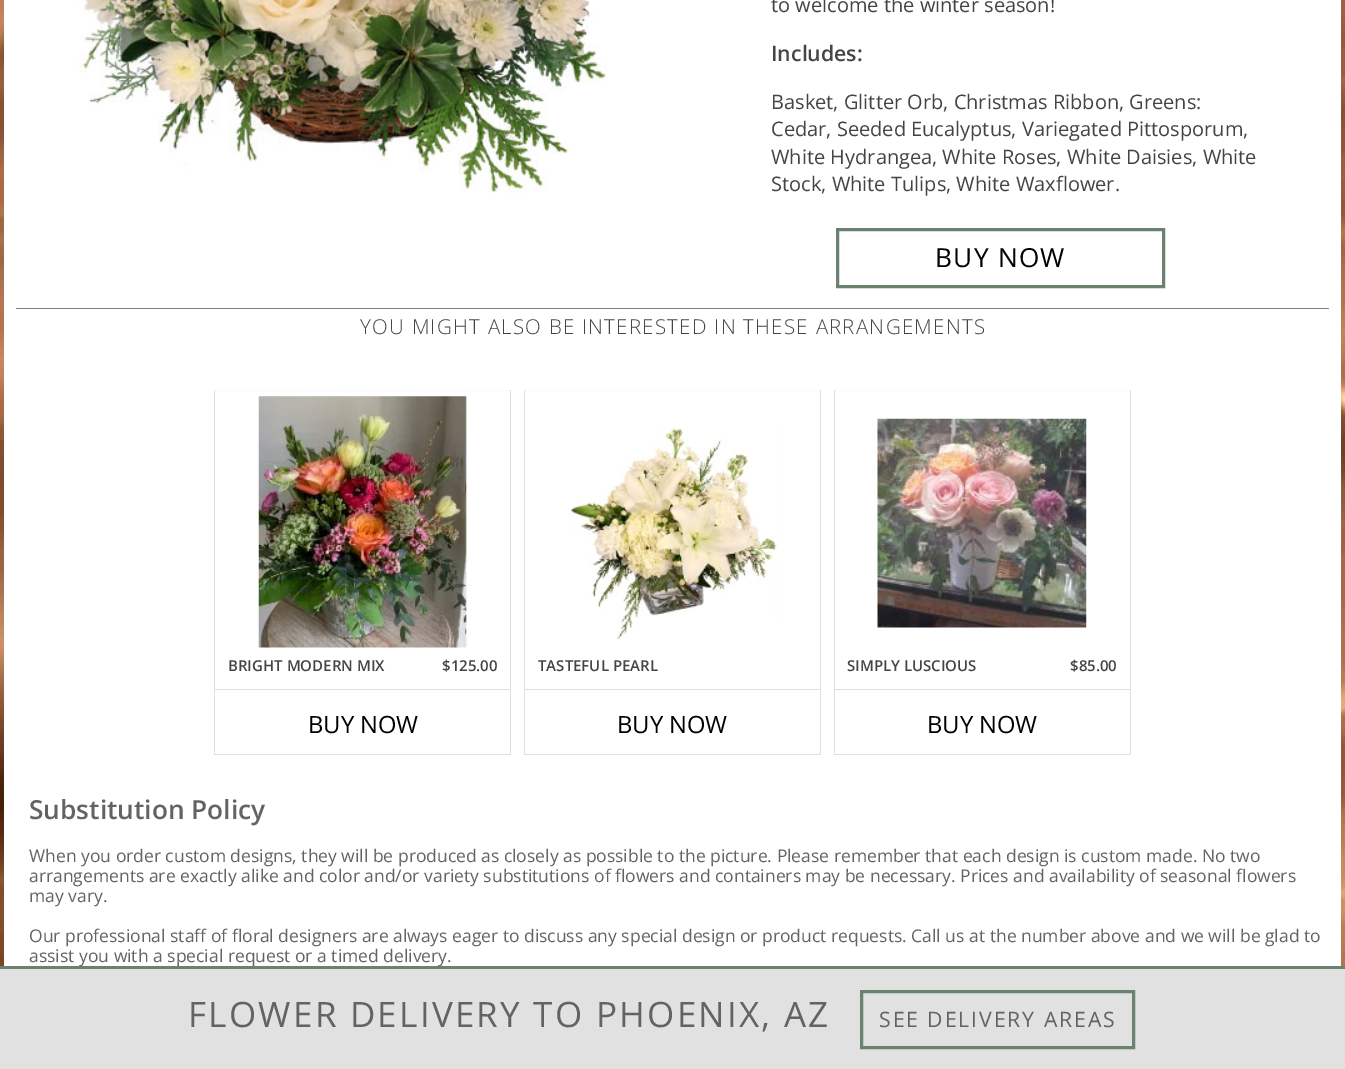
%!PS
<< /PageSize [1345 1069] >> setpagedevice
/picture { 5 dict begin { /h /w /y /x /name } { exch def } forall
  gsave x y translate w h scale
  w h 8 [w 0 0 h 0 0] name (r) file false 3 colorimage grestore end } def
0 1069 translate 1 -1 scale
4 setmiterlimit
1 setgray
0 0 1345 1069 rectfill
(img1.rgb) 0 0 1345 966 picture
4 0 1337 966 rectfill
(img2.rgb) 79 0 528 193 picture
/OpenSans-Regular [20 0 0 -20 0 0] selectfont
0.267 setgray
771 12 moveto (to welcome the winter season!) show
/OpenSans-SemiBold [21.25 0 0 -21.25 0 0] selectfont
771 61 moveto (Includes:) show
/OpenSans-Regular [20 0 0 -20 0 0] selectfont
771 109 moveto (Basket, Glitter Orb, Christmas Ribbon, Greens:) show
771 136 moveto (Cedar, Seeded Eucalyptus, Variegated Pittosporum,) show
771 164 moveto (White Hydrangea, White Roses, White Daisies, White) show
771 191 moveto (Stock, White Tulips, White Waxflower.) show
0.42 0.51 0.431 setrgbcolor
3 setlinewidth
837.5 229.5 326 57 rectstroke
/OpenSans-Regular [26.25 0 0 -26.25 0 0] selectfont
0 setgray
935 267 moveto 1.25 0 (BUY NOW) ashow
0.502 setgray
16 308 1313 1 rectfill
/OpenSans-Light [20.5 0 0 -20.5 0 0] selectfont
0.267 setgray
360 334 moveto 1.25 0 (YOU MIGHT ALSO BE INTERESTED IN THESE ARRANGEMENTS) ashow
0.976 setgray
214 390 297 1 rectfill
0.886 0.871 0.867 setrgbcolor
510 390 1 365 rectfill
214 754 297 1 rectfill
214 390 1 365 rectfill
(img3.rgb) 258 396 210 252 picture
/OpenSans-SemiBold [15 0 0 -15 0 0] selectfont
0.267 setgray
228 671 moveto (BRIGHT MODERN MIX) show
442 671 moveto ($125.00) show
0.886 0.871 0.867 setrgbcolor
215 689 295 1 rectfill
/OpenSans-Regular [23.75 0 0 -23.75 0 0] selectfont
0 setgray
308 733 moveto (BUY NOW) show
0.976 setgray
524 390 297 1 rectfill
0.886 0.871 0.867 setrgbcolor
820 390 1 365 rectfill
524 754 297 1 rectfill
524 390 1 365 rectfill
(img4.rgb) 569 427 209 212 picture
/OpenSans-SemiBold [15 0 0 -15 0 0] selectfont
0.267 setgray
538 671 moveto (TASTEFUL PEARL) show
0.886 0.871 0.867 setrgbcolor
525 689 295 1 rectfill
/OpenSans-Regular [23.75 0 0 -23.75 0 0] selectfont
0 setgray
617 733 moveto (BUY NOW) show
0.976 setgray
834 390 297 1 rectfill
0.886 0.871 0.867 setrgbcolor
1130 390 1 365 rectfill
834 754 297 1 rectfill
834 390 1 365 rectfill
(img5.rgb) 877 418 210 210 picture
/OpenSans-SemiBold [15 0 0 -15 0 0] selectfont
0.267 setgray
847 671 moveto (SIMPLY LUSCIOUS) show
1070 671 moveto ($85.00) show
0.886 0.871 0.867 setrgbcolor
835 689 295 1 rectfill
/OpenSans-Regular [23.75 0 0 -23.75 0 0] selectfont
0 setgray
927 733 moveto (BUY NOW) show
/OpenSans-SemiBold [26.25 0 0 -26.25 0 0] selectfont
0.388 setgray
29 819 moveto (Substitution Policy) show
/OpenSans-Regular [17.5 0 0 -17.5 0 0] selectfont
29 862 moveto (When you order custom designs, they will be produced as closely as possible to the picture. Please remember that each design is custom made. No two) show
29 882 moveto (arrangements are exactly alike and color and/or variety substitutions of flowers and containers may be necessary. Prices and availability of seasonal flowers) show
29 902 moveto (may vary.) show
29 942 moveto (Our professional staff of floral designers are always eager to discuss any special design or product requests. Call us at the number above and we will be glad to) show
0.42 0.51 0.431 setrgbcolor
0 966 1345 3 rectfill
0.388 setgray
29 962 moveto (assist you with a special request or a timed delivery.) show
0.882 setgray
0 969 1345 100 rectfill
/OpenSans-Regular [35 0 0 -35 0 0] selectfont
0.388 setgray
188 1027 moveto 2.25 0 (FLOWER DELIVERY TO PHOENIX, AZ) ashow
0.42 0.51 0.431 setrgbcolor
861.5 991.5 272 56 rectstroke
/OpenSans-Regular [21.25 0 0 -21.25 0 0] selectfont
0.388 setgray
879 1027 moveto 1.9 0 (SEE DELIVERY AREAS) ashow
showpage
